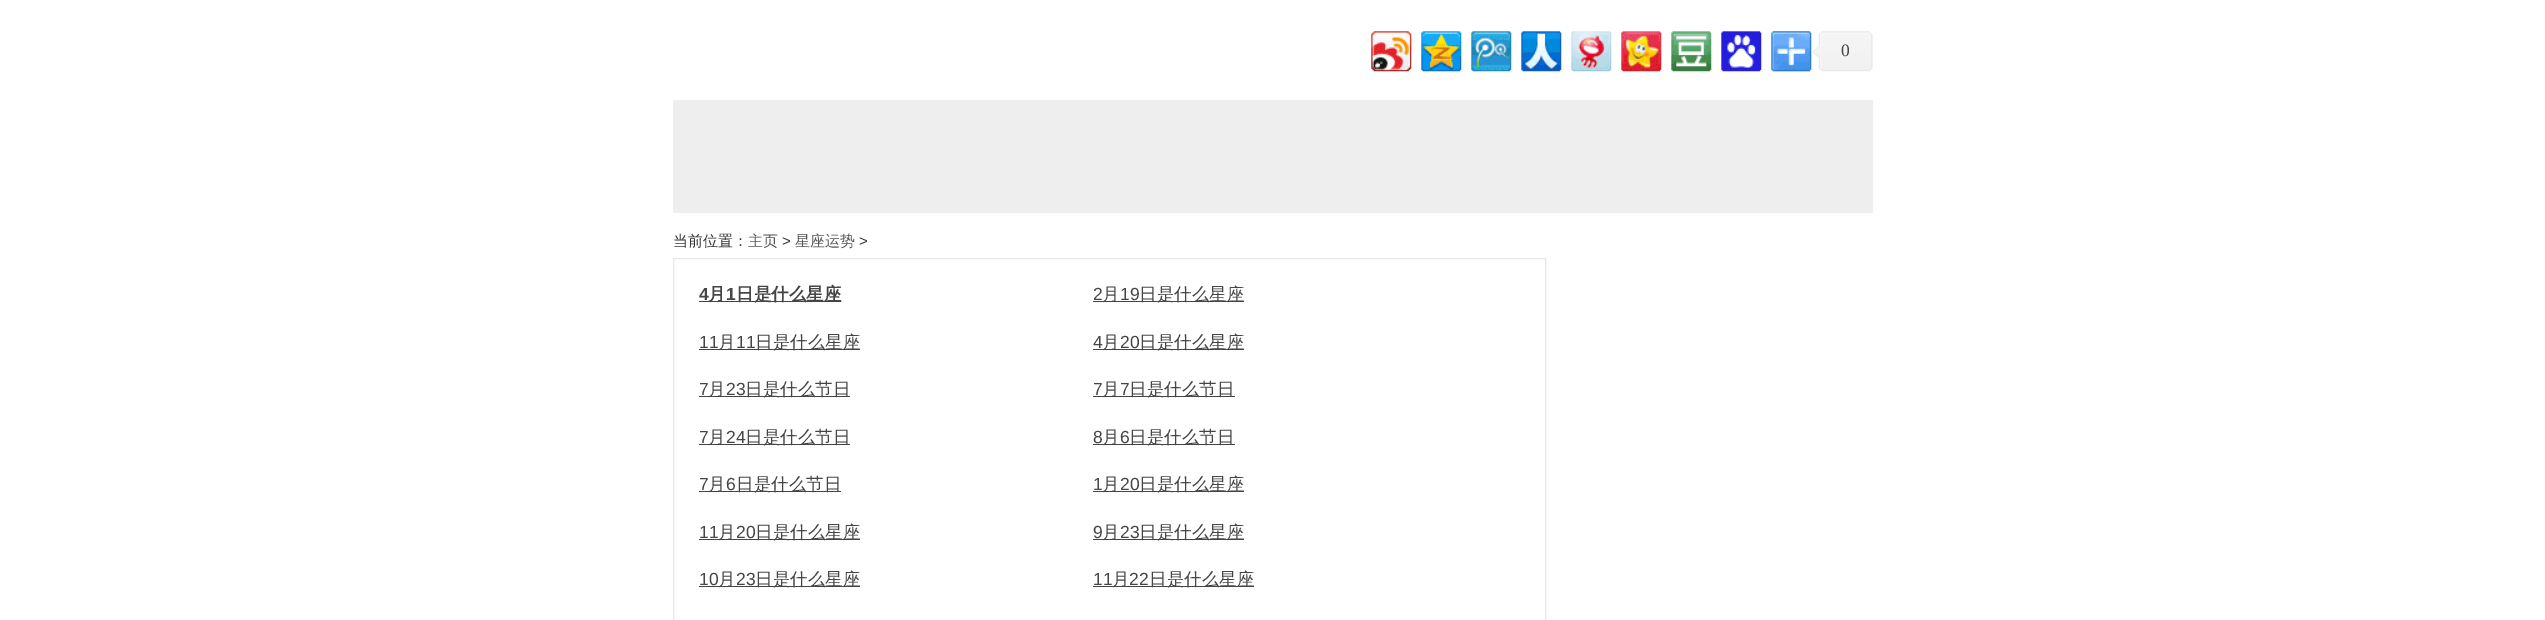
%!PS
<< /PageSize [2545 620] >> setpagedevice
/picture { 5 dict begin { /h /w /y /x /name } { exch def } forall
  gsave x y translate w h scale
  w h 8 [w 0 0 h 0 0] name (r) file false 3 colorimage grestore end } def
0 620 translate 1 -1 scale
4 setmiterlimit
1 setgray
0 0 2545 620 rectfill
(img1.rgb) 1371 31 41 41 picture
(img2.rgb) 1421 31 41 41 picture
(img3.rgb) 1471 31 41 41 picture
(img4.rgb) 1521 31 41 41 picture
(img5.rgb) 1571 31 41 41 picture
(img6.rgb) 1621 31 41 41 picture
(img7.rgb) 1671 31 41 41 picture
(img8.rgb) 1721 31 41 41 picture
(img9.rgb) 1771 31 41 41 picture
(img10.rgb) 1812 31 61 41 picture
/LiberationSerif-Regular [17.5 0 0 -17.5 0 0] selectfont
0.271 setgray
1841 56 moveto (0) show
0.933 setgray
673 100 1200 113 rectfill
/WenQuanYiZenHei-Medium [15 0 0 -15 0 0] selectfont
0.2 setgray
673 246 moveto (当前位置：) show
0.333 setgray
748 246 moveto (主页) show
/LiberationSans-Regular [15 0 0 -15 0 0] selectfont
0.2 setgray
782 246 moveto (>) show
/WenQuanYiZenHei-Medium [15 0 0 -15 0 0] selectfont
0.333 setgray
795 246 moveto (星座运势) show
/LiberationSans-Regular [15 0 0 -15 0 0] selectfont
0.2 setgray
859 246 moveto (>) show
0.906 setgray
673.5 258.5 872 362 rectstroke
/LiberationSans-Bold [17.5 0 0 -17.5 0 0] selectfont
0.271 setgray
699 300 moveto (4) show
0.267 setgray
699 301 142 1 rectfill
/WenQuanYiZenHei-Bold [17.5 0 0 -17.5 0 0] selectfont
0.271 setgray
708 300 moveto (月) show
/LiberationSans-Bold [17.5 0 0 -17.5 0 0] selectfont
726 300 moveto (1) show
/WenQuanYiZenHei-Bold [17.5 0 0 -17.5 0 0] selectfont
736 300 moveto (日是什么星座) show
/LiberationSans-Regular [17.5 0 0 -17.5 0 0] selectfont
1093 300 moveto (2) show
0.267 setgray
1093 301 151 1 rectfill
/WenQuanYiZenHei-Medium [17.5 0 0 -17.5 0 0] selectfont
0.271 setgray
1102 300 moveto (月) show
/LiberationSans-Regular [17.5 0 0 -17.5 0 0] selectfont
1120 300 moveto (19) show
/WenQuanYiZenHei-Medium [17.5 0 0 -17.5 0 0] selectfont
1139 300 moveto (日是什么星座) show
/LiberationSans-Regular [17.5 0 0 -17.5 0 0] selectfont
699 348 moveto (11) show
0.267 setgray
699 349 161 1 rectfill
/WenQuanYiZenHei-Medium [17.5 0 0 -17.5 0 0] selectfont
0.271 setgray
718 348 moveto (月) show
/LiberationSans-Regular [17.5 0 0 -17.5 0 0] selectfont
736 348 moveto (11) show
/WenQuanYiZenHei-Medium [17.5 0 0 -17.5 0 0] selectfont
755 348 moveto (日是什么星座) show
/LiberationSans-Regular [17.5 0 0 -17.5 0 0] selectfont
1093 348 moveto (4) show
0.267 setgray
1093 349 151 1 rectfill
/WenQuanYiZenHei-Medium [17.5 0 0 -17.5 0 0] selectfont
0.271 setgray
1102 348 moveto (月) show
/LiberationSans-Regular [17.5 0 0 -17.5 0 0] selectfont
1120 348 moveto (20) show
/WenQuanYiZenHei-Medium [17.5 0 0 -17.5 0 0] selectfont
1139 348 moveto (日是什么星座) show
/LiberationSans-Regular [17.5 0 0 -17.5 0 0] selectfont
699 395 moveto (7) show
0.267 setgray
699 396 151 1 rectfill
/WenQuanYiZenHei-Medium [17.5 0 0 -17.5 0 0] selectfont
0.271 setgray
708 395 moveto (月) show
/LiberationSans-Regular [17.5 0 0 -17.5 0 0] selectfont
726 395 moveto (23) show
/WenQuanYiZenHei-Medium [17.5 0 0 -17.5 0 0] selectfont
745 395 moveto (日是什么节日) show
/LiberationSans-Regular [17.5 0 0 -17.5 0 0] selectfont
1093 395 moveto (7) show
0.267 setgray
1093 396 142 1 rectfill
/WenQuanYiZenHei-Medium [17.5 0 0 -17.5 0 0] selectfont
0.271 setgray
1102 395 moveto (月) show
/LiberationSans-Regular [17.5 0 0 -17.5 0 0] selectfont
1120 395 moveto (7) show
/WenQuanYiZenHei-Medium [17.5 0 0 -17.5 0 0] selectfont
1129 395 moveto (日是什么节日) show
/LiberationSans-Regular [17.5 0 0 -17.5 0 0] selectfont
699 443 moveto (7) show
0.267 setgray
699 444 151 1 rectfill
/WenQuanYiZenHei-Medium [17.5 0 0 -17.5 0 0] selectfont
0.271 setgray
708 443 moveto (月) show
/LiberationSans-Regular [17.5 0 0 -17.5 0 0] selectfont
726 443 moveto (24) show
/WenQuanYiZenHei-Medium [17.5 0 0 -17.5 0 0] selectfont
745 443 moveto (日是什么节日) show
/LiberationSans-Regular [17.5 0 0 -17.5 0 0] selectfont
1093 443 moveto (8) show
0.267 setgray
1093 444 142 1 rectfill
/WenQuanYiZenHei-Medium [17.5 0 0 -17.5 0 0] selectfont
0.271 setgray
1102 443 moveto (月) show
/LiberationSans-Regular [17.5 0 0 -17.5 0 0] selectfont
1120 443 moveto (6) show
/WenQuanYiZenHei-Medium [17.5 0 0 -17.5 0 0] selectfont
1129 443 moveto (日是什么节日) show
/LiberationSans-Regular [17.5 0 0 -17.5 0 0] selectfont
699 490 moveto (7) show
0.267 setgray
699 491 142 1 rectfill
/WenQuanYiZenHei-Medium [17.5 0 0 -17.5 0 0] selectfont
0.271 setgray
708 490 moveto (月) show
/LiberationSans-Regular [17.5 0 0 -17.5 0 0] selectfont
726 490 moveto (6) show
/WenQuanYiZenHei-Medium [17.5 0 0 -17.5 0 0] selectfont
736 490 moveto (日是什么节日) show
/LiberationSans-Regular [17.5 0 0 -17.5 0 0] selectfont
1093 490 moveto (1) show
0.267 setgray
1093 491 151 1 rectfill
/WenQuanYiZenHei-Medium [17.5 0 0 -17.5 0 0] selectfont
0.271 setgray
1102 490 moveto (月) show
/LiberationSans-Regular [17.5 0 0 -17.5 0 0] selectfont
1120 490 moveto (20) show
/WenQuanYiZenHei-Medium [17.5 0 0 -17.5 0 0] selectfont
1139 490 moveto (日是什么星座) show
/LiberationSans-Regular [17.5 0 0 -17.5 0 0] selectfont
699 538 moveto (11) show
0.267 setgray
699 539 161 1 rectfill
/WenQuanYiZenHei-Medium [17.5 0 0 -17.5 0 0] selectfont
0.271 setgray
718 538 moveto (月) show
/LiberationSans-Regular [17.5 0 0 -17.5 0 0] selectfont
736 538 moveto (20) show
/WenQuanYiZenHei-Medium [17.5 0 0 -17.5 0 0] selectfont
755 538 moveto (日是什么星座) show
/LiberationSans-Regular [17.5 0 0 -17.5 0 0] selectfont
1093 538 moveto (9) show
0.267 setgray
1093 539 151 1 rectfill
/WenQuanYiZenHei-Medium [17.5 0 0 -17.5 0 0] selectfont
0.271 setgray
1102 538 moveto (月) show
/LiberationSans-Regular [17.5 0 0 -17.5 0 0] selectfont
1120 538 moveto (23) show
/WenQuanYiZenHei-Medium [17.5 0 0 -17.5 0 0] selectfont
1139 538 moveto (日是什么星座) show
/LiberationSans-Regular [17.5 0 0 -17.5 0 0] selectfont
699 585 moveto (10) show
0.267 setgray
699 586 161 1 rectfill
/WenQuanYiZenHei-Medium [17.5 0 0 -17.5 0 0] selectfont
0.271 setgray
718 585 moveto (月) show
/LiberationSans-Regular [17.5 0 0 -17.5 0 0] selectfont
736 585 moveto (23) show
/WenQuanYiZenHei-Medium [17.5 0 0 -17.5 0 0] selectfont
755 585 moveto (日是什么星座) show
/LiberationSans-Regular [17.5 0 0 -17.5 0 0] selectfont
1093 585 moveto (11) show
0.267 setgray
1093 586 161 1 rectfill
/WenQuanYiZenHei-Medium [17.5 0 0 -17.5 0 0] selectfont
0.271 setgray
1112 585 moveto (月) show
/LiberationSans-Regular [17.5 0 0 -17.5 0 0] selectfont
1129 585 moveto (22) show
/WenQuanYiZenHei-Medium [17.5 0 0 -17.5 0 0] selectfont
1149 585 moveto (日是什么星座) show
showpage
